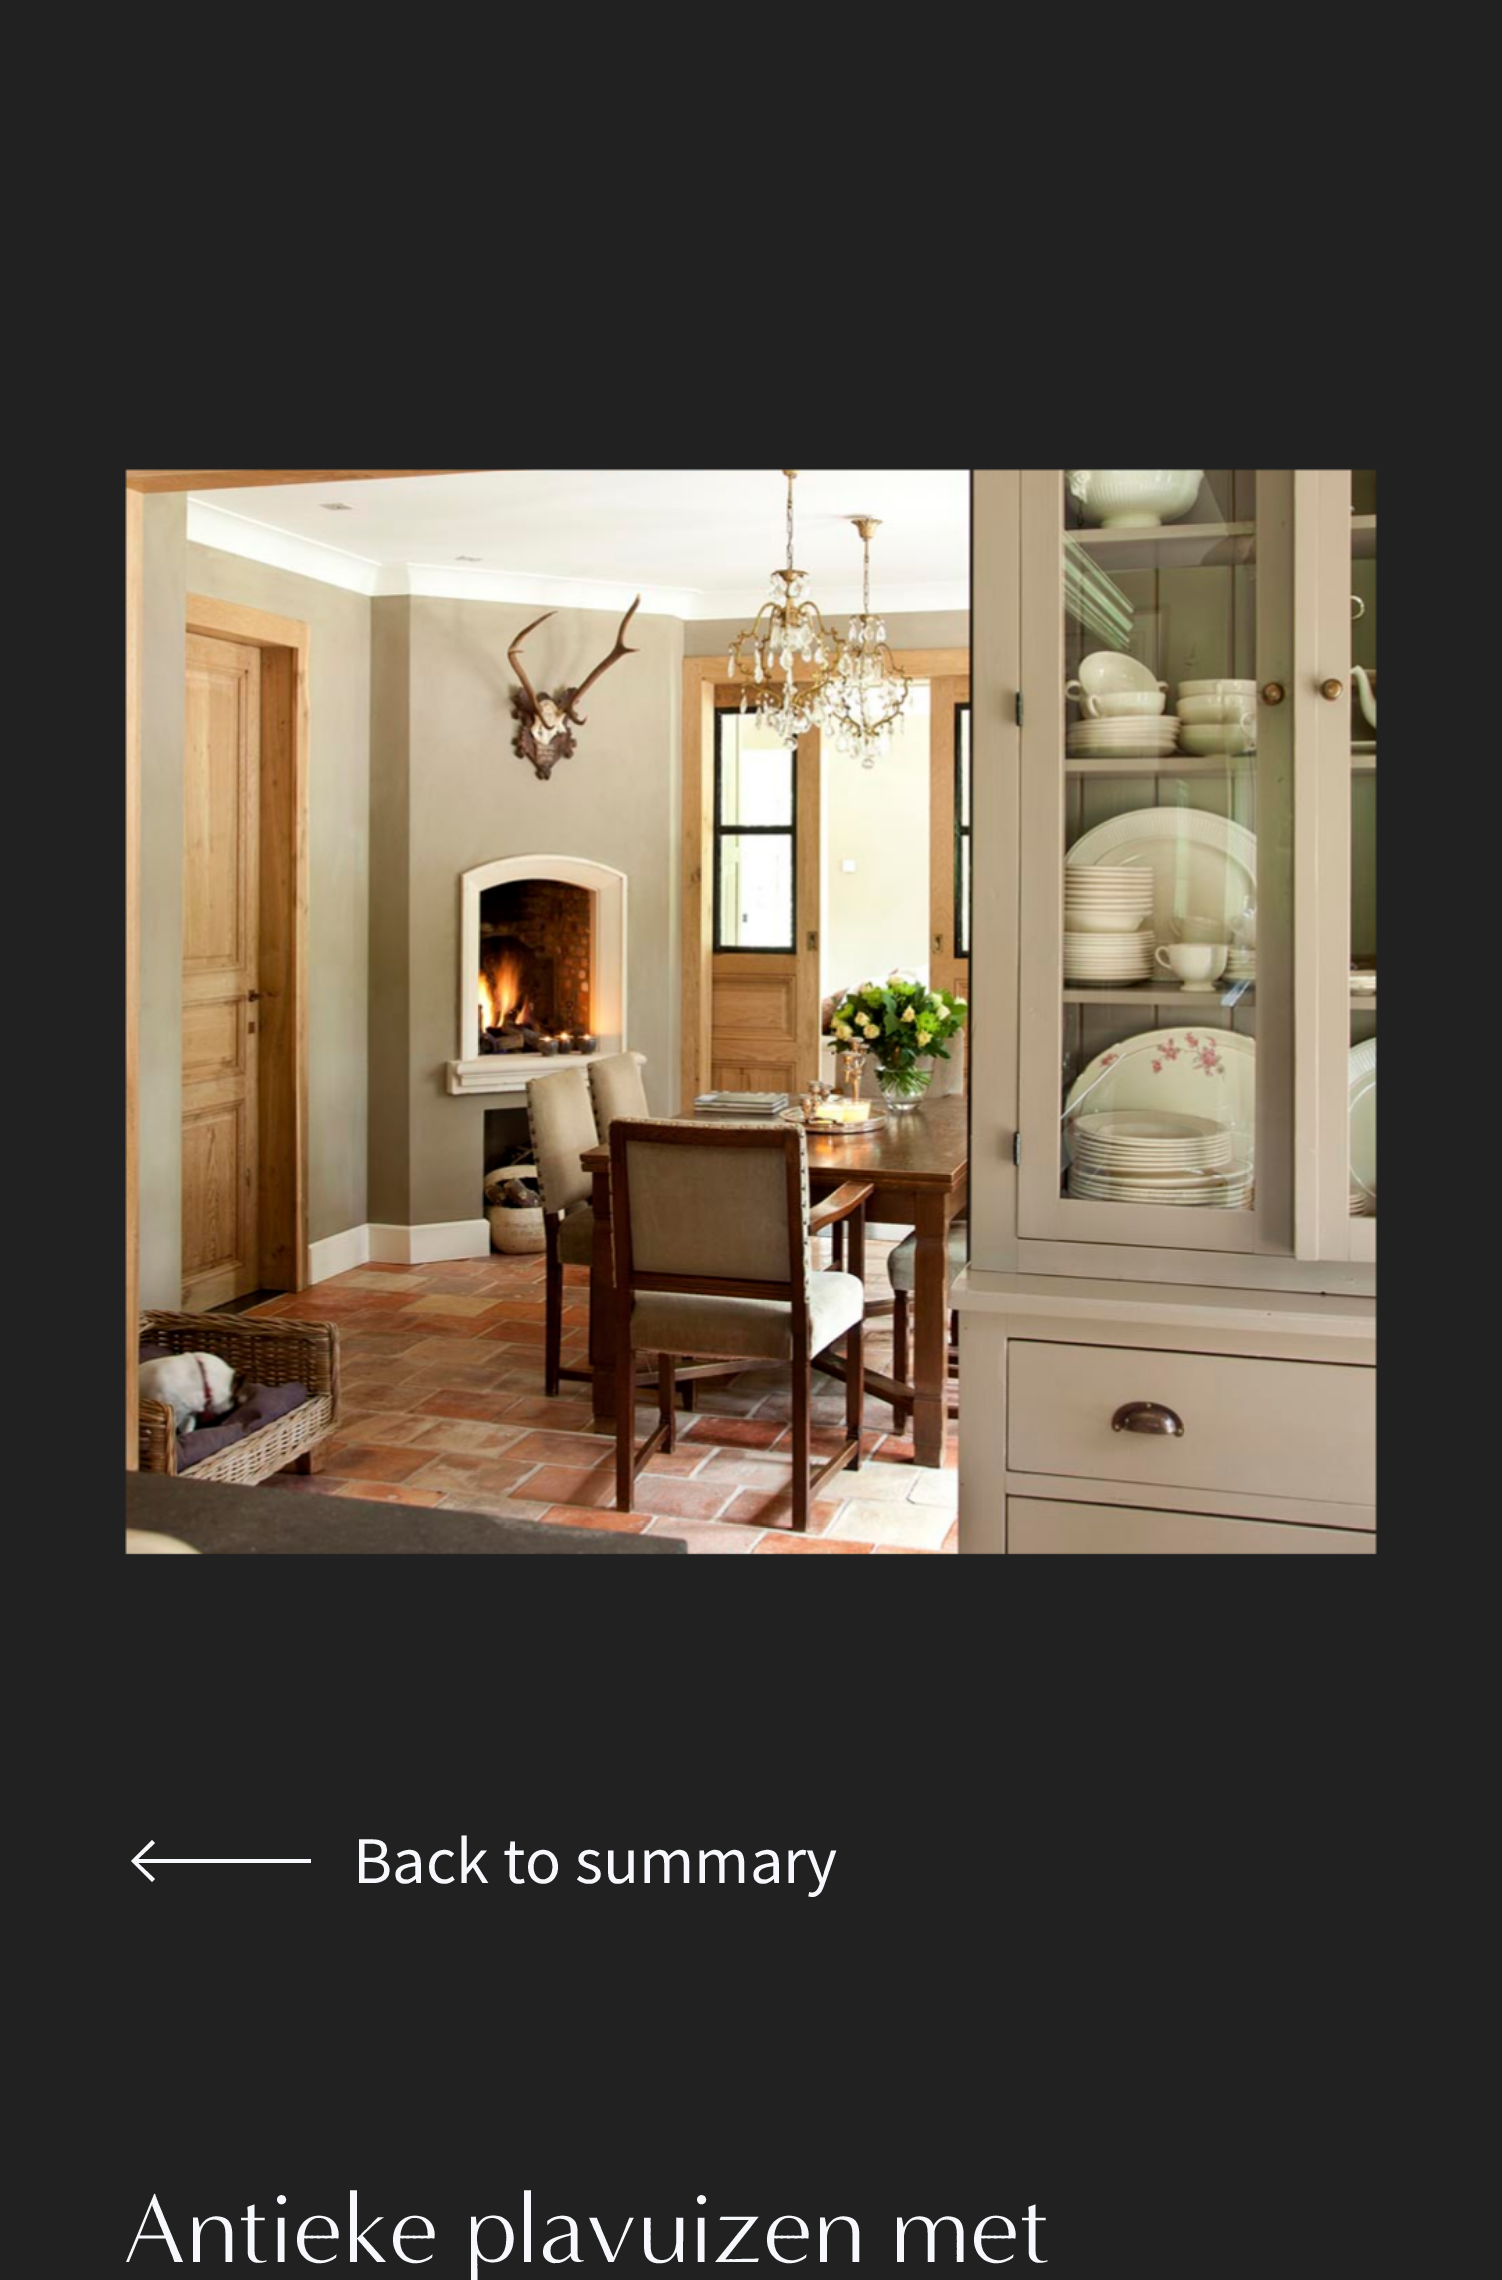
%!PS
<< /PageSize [1502 2280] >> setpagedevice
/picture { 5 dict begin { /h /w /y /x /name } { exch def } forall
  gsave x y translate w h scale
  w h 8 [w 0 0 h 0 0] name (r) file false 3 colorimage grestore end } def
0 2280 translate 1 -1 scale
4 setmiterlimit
0.129 setgray
0 0 1502 2280 rectfill
(img1.rgb) 125 469 1252 1086 picture
0.969 0.973 0.984 setrgbcolor
newpath 152 1882 moveto 131 1861 lineto 152 1840 lineto 155 1843 lineto 138 1859 lineto 311 1859 lineto 311 1863 lineto 138 1863 lineto 155 1879 lineto closepath fill
/SourceSansPro-Regular [66.75 0 0 -66.75 0 0] selectfont
353 1883 moveto (Back to summary) show
/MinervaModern-Regular [100.1 0 0 -100.1 0 0] selectfont
123 2262 moveto (Antieke plavuizen met) show
showpage
